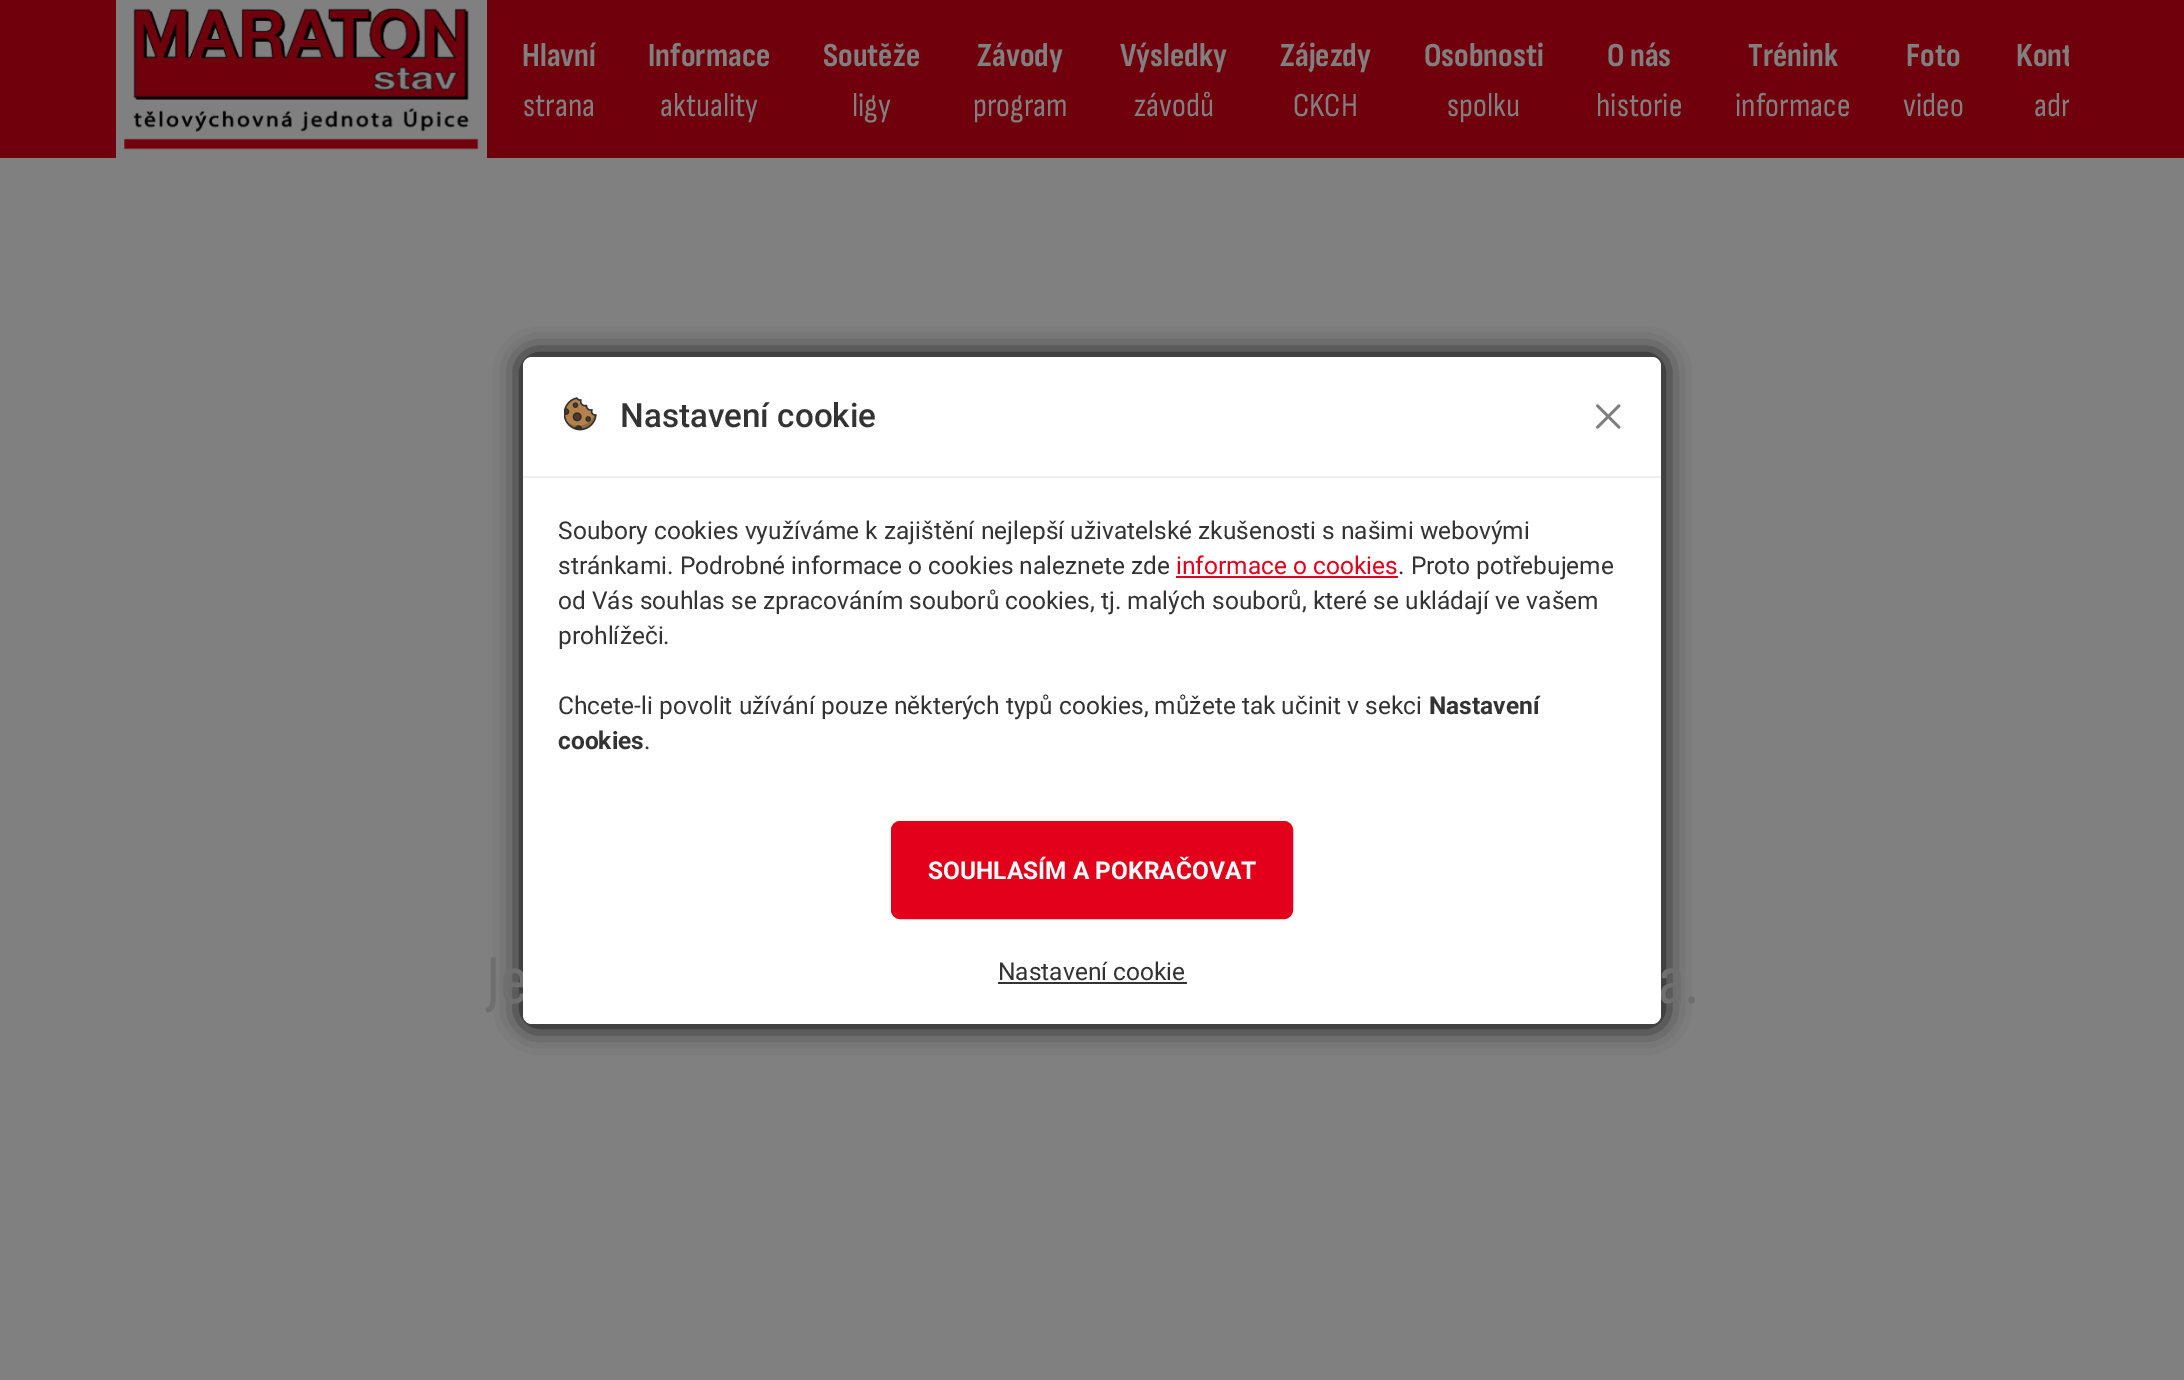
%!PS
<< /PageSize [2184 1380] /PageUsesTransparency true >> setpagedevice
/alpha { dup .setfillconstantalpha .setstrokeconstantalpha } def
/roundrect { 5 dict begin { /r /h /w /y /x } { exch def } forall
  x r add y moveto x w add y 2 copy h add r arct x w add y h add x 1 index r arct
  x y h add x y r arct x y 2 copy exch w add exch r arct closepath end } def
/shadow { 12 dict begin { /a /b /q /h /w /y /x } { exch def } forall gsave /was 0 def
  9 -2 -9 { dup b mul 4 div /e exch def 1 sub .425 mul 2.718 exch exp 1 add a .99 .min exch div /now exch def
    1 1 now sub 1 was sub div sub alpha /was now def
    w h .min e 2 mul add 0 gt { x e sub y e sub w e 2 mul add h e 2 mul add
      q e add b .6 mul add w h .min 2 div e add .min 0 .max roundrect fill } if } for grestore end } def
/picture { 5 dict begin { /h /w /y /x /name } { exch def } forall
  gsave x y translate w h scale
  w h 8 [w 0 0 h 0 0] name (r) file false 3 colorimage grestore end } def
0 .pushpdf14devicefilter
0 1380 translate 1 -1 scale
4 setmiterlimit
0.502 setgray
0 0 2184 1380 rectfill
0.443 0 0.051 setrgbcolor
0 0 2184 158 rectfill
0.502 setgray
116 0 371 158 rectfill
(img1.rgb) 124 8 355 142 picture
/SofiaSansCondensed-Bold [33.5 0 0 -33.5 0 0] selectfont
522 66 moveto (Hlavní) show
/SofiaSansCondensed-Regular [33.5 0 0 -33.5 0 0] selectfont
523 116 moveto (strana) show
/SofiaSansCondensed-Bold [33.5 0 0 -33.5 0 0] selectfont
648 66 moveto (Informace) show
/SofiaSansCondensed-Regular [33.5 0 0 -33.5 0 0] selectfont
660 116 moveto (aktuality) show
/SofiaSansCondensed-Bold [33.5 0 0 -33.5 0 0] selectfont
823 66 moveto (Soutěže) show
/SofiaSansCondensed-Regular [33.5 0 0 -33.5 0 0] selectfont
852 116 moveto (ligy) show
/SofiaSansCondensed-Bold [33.5 0 0 -33.5 0 0] selectfont
977 66 moveto (Závody) show
/SofiaSansCondensed-Regular [33.5 0 0 -33.5 0 0] selectfont
973 116 moveto (program) show
/SofiaSansCondensed-Bold [33.5 0 0 -33.5 0 0] selectfont
1120 66 moveto (Výsledky) show
/SofiaSansCondensed-Regular [33.5 0 0 -33.5 0 0] selectfont
1134 116 moveto (závodů) show
/SofiaSansCondensed-Bold [33.5 0 0 -33.5 0 0] selectfont
1280 66 moveto (Zájezdy) show
/SofiaSansCondensed-Regular [33.5 0 0 -33.5 0 0] selectfont
1293 116 moveto (CKCH) show
/SofiaSansCondensed-Bold [33.5 0 0 -33.5 0 0] selectfont
1424 66 moveto (Osobnosti) show
/SofiaSansCondensed-Regular [33.5 0 0 -33.5 0 0] selectfont
1447 116 moveto (spolku) show
/SofiaSansCondensed-Bold [33.5 0 0 -33.5 0 0] selectfont
1607 66 moveto (O nás) show
/SofiaSansCondensed-Regular [33.5 0 0 -33.5 0 0] selectfont
1596 116 moveto (historie) show
/SofiaSansCondensed-Bold [33.5 0 0 -33.5 0 0] selectfont
1748 66 moveto (Trénink) show
/SofiaSansCondensed-Regular [33.5 0 0 -33.5 0 0] selectfont
1735 116 moveto (informace) show
/SofiaSansCondensed-Bold [33.5 0 0 -33.5 0 0] selectfont
1906 66 moveto (Foto) show
/SofiaSansCondensed-Regular [33.5 0 0 -33.5 0 0] selectfont
1903 116 moveto (video) show
gsave
487 0 1582 158 rectclip
/SofiaSansCondensed-Bold [33.5 0 0 -33.5 0 0] selectfont
2016 66 moveto (Kont) show
/SofiaSansCondensed-Regular [33.5 0 0 -33.5 0 0] selectfont
2034 116 moveto (adr) show
grestore
0 setgray
522 355 1141 671 11 13 1 shadow
/SofiaSansCondensed-Regular [70 0 0 -70 0 0] selectfont
0.435 setgray
486 1003 moveto (Je) show
1658 1003 moveto (a.) show
1 setgray
523 357 1138 667 9 roundrect fill
0.941 setgray
523 476 1138 2 rectfill
(img2.rgb) 564 397 33 34 picture
/Roboto-Medium [33.25 0 0 -33.25 0 0] selectfont
0.2 setgray
620 427 moveto (Nastavení cookie) show
(img3.rgb) 1596 404 25 25 picture
/Roboto-Regular [24.5 0 0 -24.5 0 0] selectfont
558 539 moveto (Soubory cookies využíváme k zajištění nejlepší uživatelské zkušenosti s našimi webovými) show
558 574 moveto (stránkami. Podrobné informace o cookies naleznete zde) show
0.886 0 0.102 setrgbcolor
1176 574 moveto (informace o cookies) show
1176 576 222 2 rectfill
0.2 setgray
1398 574 moveto (. Proto potřebujeme) show
558 609 moveto (od Vás souhlas se zpracováním souborů cookies, tj. malých souborů, které se ukládají ve vašem) show
558 644 moveto (prohlížeči.) show
558 714 moveto (Chcete-li povolit užívání pouze některých typů cookies, můžete tak učinit v sekci) show
/Roboto-Bold [24.5 0 0 -24.5 0 0] selectfont
1429 714 moveto (Nastavení) show
558 749 moveto (cookies) show
/Roboto-Regular [24.5 0 0 -24.5 0 0] selectfont
644 749 moveto (.) show
0.886 0 0.102 setrgbcolor
892 822 400 96 8 roundrect gsave fill grestore
2 setlinewidth
stroke
/Roboto-Bold [24.5 0 0 -24.5 0 0] selectfont
1 setgray
928 879 moveto (SOUHLASÍM A POKRAČOVAT) show
/Roboto-Regular [24.5 0 0 -24.5 0 0] selectfont
0.2 setgray
998 980 moveto (Nastavení cookie) show
998 982 189 2 rectfill
.poppdf14devicefilter showpage
